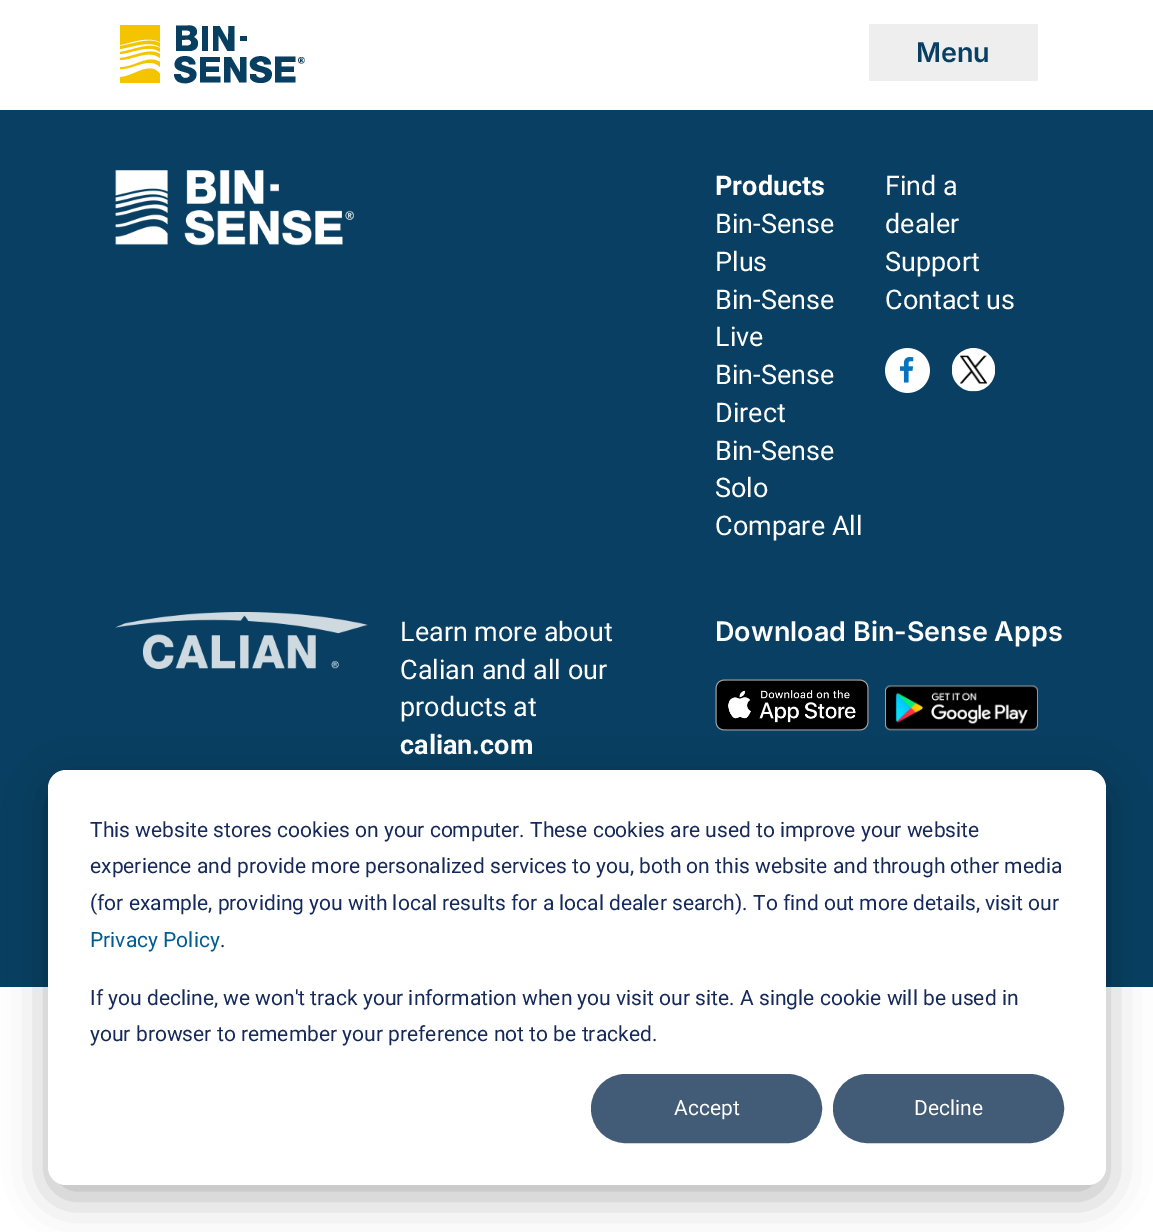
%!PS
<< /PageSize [1153 1232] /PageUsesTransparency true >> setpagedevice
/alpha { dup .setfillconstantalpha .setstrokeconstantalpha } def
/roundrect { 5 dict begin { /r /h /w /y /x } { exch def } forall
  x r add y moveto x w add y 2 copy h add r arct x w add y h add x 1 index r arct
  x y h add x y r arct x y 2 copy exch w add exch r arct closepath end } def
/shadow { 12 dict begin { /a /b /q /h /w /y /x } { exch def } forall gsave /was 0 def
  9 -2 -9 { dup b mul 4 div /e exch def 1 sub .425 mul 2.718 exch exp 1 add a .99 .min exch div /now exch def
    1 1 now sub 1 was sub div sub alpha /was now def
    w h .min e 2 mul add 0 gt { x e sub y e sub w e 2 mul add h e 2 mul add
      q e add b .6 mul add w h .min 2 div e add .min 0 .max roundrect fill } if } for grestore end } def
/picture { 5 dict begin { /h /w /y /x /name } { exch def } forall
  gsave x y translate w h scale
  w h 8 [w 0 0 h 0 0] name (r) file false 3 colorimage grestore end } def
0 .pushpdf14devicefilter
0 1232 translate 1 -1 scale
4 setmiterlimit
1 setgray
0 0 1153 1232 rectfill
0.957 0.769 0 setrgbcolor
newpath 120 52 moveto 120 54 lineto 133 53 149 44 160 52 curveto 160 48 lineto 149 42 133 50 120 52 curveto closepath fill
newpath 120 46 moveto 120 49 lineto 133 47 149 40 160 47 curveto 160 43 lineto 149 37 133 44 120 46 curveto closepath 160 58 moveto 160 54 lineto 149 47 133 57 120 58 curveto 120 60 lineto 133 60 149 49 160 58 curveto closepath fill
newpath 160 67 moveto 160 62 lineto 148 54 133 68 120 67 curveto 120 69 lineto 133 70 149 56 160 67 curveto closepath fill
newpath 120 77 moveto 120 83 lineto 160 83 lineto 160 74 lineto 150 60 133 77 120 77 curveto closepath 120 25 moveto 120 45 lineto 133 42 148 36 160 42 curveto 160 25 lineto closepath fill
0.031 0.247 0.38 setrgbcolor
newpath 180.5 74 moveto 174 74 lineto 174 76.5 175 79 177 81 curveto 183 85.5 196.5 83.5 196.5 74.5 curveto 196.5 72.5 195.5 70.5 194 69.5 curveto 191 67 187 67 184 65.5 curveto 183 65.5 182 65 181.5 64 curveto 180 61 189 60 189 64.5 curveto 195.5 64.5 lineto 195.5 54 177.5 53.5 175 62 curveto 172.5 70.5 182 71 187.5 73 curveto 189.5 73.5 191 76 188.5 77 curveto 187.5 78 186 78 184.5 78 curveto 182.5 77.5 181 76 180.5 74 curveto closepath fill
newpath 190 51 moveto 176 51 lineto 176 25.5 lineto 187.5 25.5 lineto 192 25 197 26.5 197 32 curveto 197 34 195.5 36 193.5 37 curveto 196 38 198 40 198 43 curveto 198 48.5 194.5 50.5 190 51 curveto closepath 182 35.5 moveto 182 30.5 lineto 184 30.5 187 30 189 31 curveto 191.5 32 190 35.5 187.5 35.5 curveto closepath 182 45.5 moveto 182 40 lineto 184.5 40 187.5 39 189.5 40 curveto 192.5 41.5 191.5 45.5 187.5 45.5 curveto closepath eofill
202 26 6 25 rectfill
newpath 200 57 moveto 220 57 lineto 220 62 lineto 206 62 lineto 206 66.5 lineto 219 66.5 lineto 219 72 lineto 206 72 lineto 206 76.5 lineto 220.5 76.5 lineto 220.5 82.5 lineto 200 82.5 lineto closepath 213 26 moveto 219.5 26 lineto 228 41 lineto 228.5 26 lineto 234.5 26 lineto 234.5 51 lineto 227.5 51 lineto 218.5 35 lineto 218.5 51 lineto 213 51 lineto closepath fill
newpath 224 57 moveto 224 82.5 lineto 230.5 82.5 lineto 230.5 66.5 lineto 239.5 82.5 lineto 246.5 82.5 lineto 246.5 57 lineto 240 57 lineto 240 72.5 lineto 231 57 lineto closepath fill
240 36 7 5 rectfill
newpath 256 74 moveto 250 74 lineto 250 77.5 lineto 251.5 82 257 83 261 83 curveto 264 83 268 82 270 79.5 curveto 271.5 78 271.5 76.5 272 74.5 curveto 272 67 263 67.5 258 65 curveto 252.5 62.5 264.5 58.5 264 64.5 curveto 271 64.5 lineto 271 52.5 247.5 54 250 65.5 curveto 250.5 67.5 252 69 253.5 70 curveto 257.5 71.5 lineto 259.5 72 266 72.5 265 76 curveto 264.5 76.5 264 77 263 77.5 curveto 260 78.5 256 77.5 256 74 curveto closepath 275 56.5 moveto 275 82.5 lineto 295.5 82.5 lineto 295.5 76.5 lineto 281.5 76.5 lineto 281.5 72 lineto 294 72 lineto 294 66.5 lineto 281.5 66.5 lineto 281.5 62 lineto 295.5 62 lineto 295.5 56.5 lineto closepath fill
newpath 301.5 63.5 moveto 305.5 63.5 305.5 57 301.5 57 curveto 297 57 297 63.5 301.5 63.5 curveto closepath 301.5 57.5 moveto 305 57.5 305 63 301.5 63 curveto 298 63 298 57.5 301.5 57.5 curveto closepath 303 62 moveto 302 60.5 lineto 302.5 60.5 303 59 302 58.5 curveto 300 58.5 lineto 300 62 lineto 301 62 lineto 301 60.5 lineto 302 62 lineto closepath 301.5 59 moveto 302.5 59 302 60 301 60 curveto 301 59 lineto closepath eofill
0.933 setgray
869 24 169 57 rectfill
/Inter-SemiBold [27 0 0 -27 0 0] selectfont
0.031 0.247 0.384 setrgbcolor
916 62 moveto (Menu) show
0 110 1153 877 rectfill
(img1.rgb) 115 170 239 76 picture
/Roboto-Bold [27 0 0 -27 0 0] selectfont
1 setgray
715 195 moveto (Products) show
/Roboto-Regular [27 0 0 -27 0 0] selectfont
715 233 moveto (Bin-Sense) show
715 271 moveto (Plus) show
715 309 moveto (Bin-Sense) show
715 346 moveto (Live) show
715 384 moveto (Bin-Sense) show
715 422 moveto (Direct) show
715 460 moveto (Bin-Sense) show
715 497 moveto (Solo) show
715 535 moveto (Compare All) show
885 195 moveto (Find a) show
885 233 moveto (dealer) show
885 271 moveto (Support) show
885 309 moveto (Contact us) show
(img2.rgb) 885 348 45 45 picture
(img3.rgb) 952 348 43 44 picture
(img4.rgb) 115 612 253 57 picture
400 641 moveto (Learn more about) show
400 679 moveto (Calian and all our) show
400 716 moveto (products at) show
/Roboto-Bold [27 0 0 -27 0 0] selectfont
400 754 moveto (calian.com) show
/Inter-SemiBold [27 0 0 -27 0 0] selectfont
715 641 moveto (Download Bin-Sense Apps) show
(img5.rgb) 715 679 154 52 picture
(img6.rgb) 885 685 153 46 picture
0 setgray
48 782 1058 415 18 21 0.28 shadow
1 setgray
48 770 1058 415 18 roundrect fill
/Roboto-Regular [21 0 0 -21 0 0] selectfont
0.082 0.161 0.353 setrgbcolor
90 837 moveto (This website stores cookies on your computer. These cookies are used to improve your website) show
90 873 moveto (experience and provide more personalized services to you, both on this website and through other media) show
90 910 moveto (\(for example, providing you with local results for a local dealer search\). To find out more details, visit our) show
0 0.361 0.565 setrgbcolor
90 947 moveto (Privacy Policy) show
0.082 0.161 0.353 setrgbcolor
220 947 moveto (.) show
90 1005 moveto (If you decline, we won't track your information when you visit our site. A single cookie will be used in) show
90 1041 moveto (your browser to remember your preference not to be tracked.) show
0.259 0.357 0.463 setrgbcolor
592 1075 229 67 33.5 roundrect gsave fill grestore
2 setlinewidth
stroke
1 setgray
674 1115 moveto (Accept) show
0.259 0.357 0.463 setrgbcolor
834 1075 229 67 33.5 roundrect gsave fill grestore
stroke
1 setgray
914 1115 moveto (Decline) show
.poppdf14devicefilter showpage
